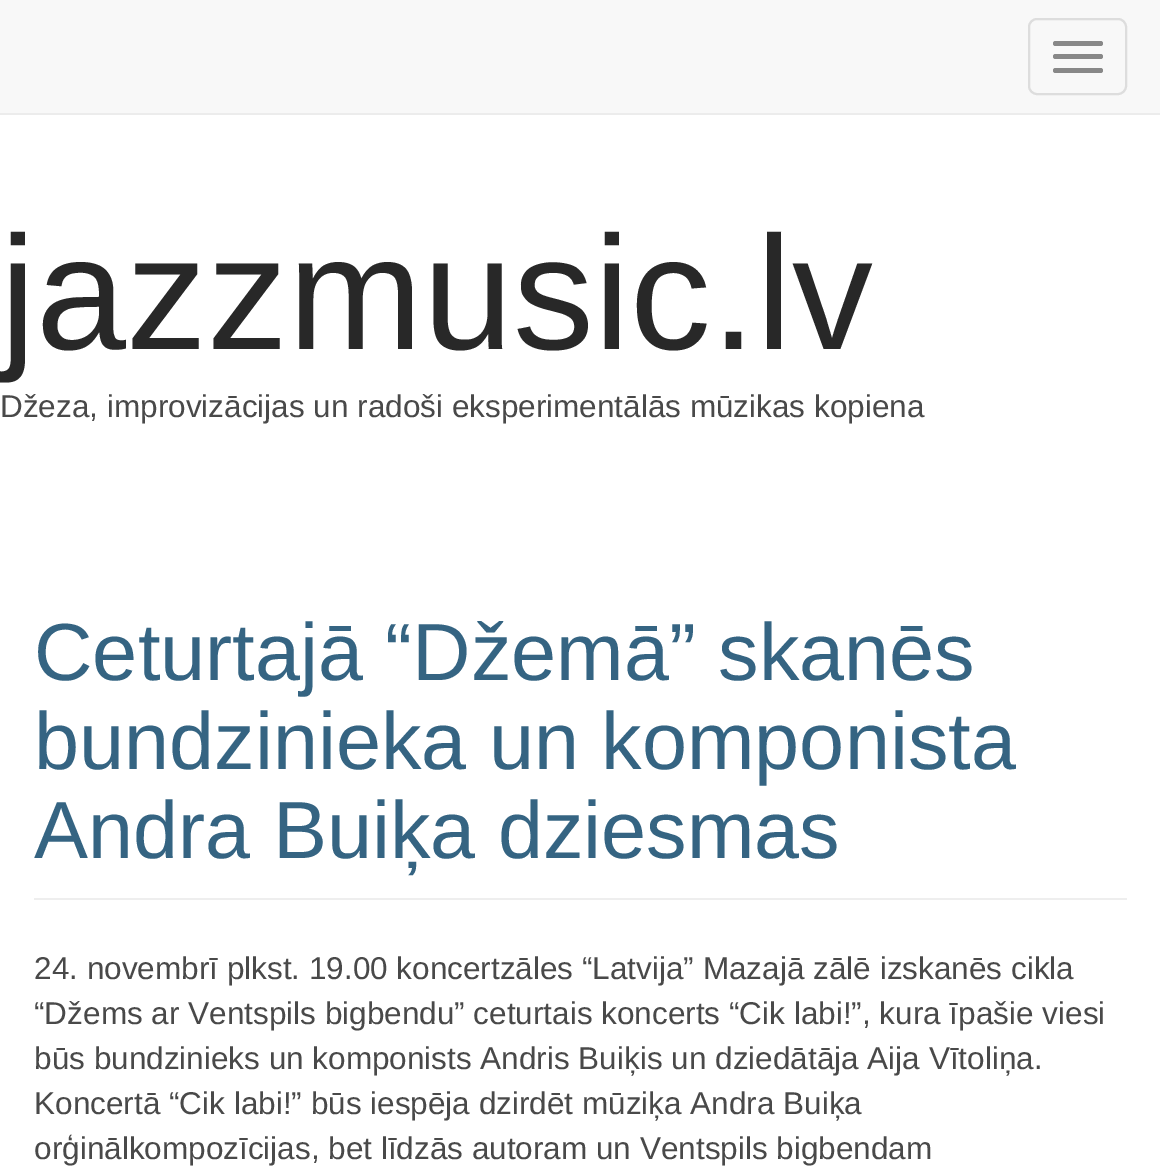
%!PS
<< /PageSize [1160 1171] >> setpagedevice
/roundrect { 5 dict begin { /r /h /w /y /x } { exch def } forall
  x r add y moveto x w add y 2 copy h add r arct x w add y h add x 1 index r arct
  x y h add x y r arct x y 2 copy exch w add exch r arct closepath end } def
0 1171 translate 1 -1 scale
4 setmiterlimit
1 setgray
0 0 1160 1171 rectfill
0.973 setgray
0 0 1160 113 rectfill
0.925 setgray
0 113 1160 2 rectfill
0.867 setgray
2 setlinewidth
1029 19 97 75 8 roundrect stroke
0.533 setgray
1053 41 50 5 2.5 roundrect fill
1053 54 50 5 2.5 roundrect fill
1053 68 50 5 2.5 roundrect fill
/LiberationSans-Regular [162 0 0 -162 0 0] selectfont
0.157 setgray
0 349 moveto (jazzmusic.lv) show
/LiberationSans-Regular [31.5 0 0 -31.5 0 0] selectfont
0.286 setgray
0 417 moveto (Džeza, improvizācijas un radoši eksperimentālās mūzikas kopiena) show
0.933 setgray
34 898 1093 2 rectfill
/LiberationSans-Regular [81 0 0 -81 0 0] selectfont
0.208 0.392 0.51 setrgbcolor
34 680 moveto (Ceturtajā “Džemā” skanēs) show
34 769 moveto (bundzinieka un komponista) show
34 858 moveto (Andra Buiķa dziesmas) show
/LiberationSans-Regular [31.5 0 0 -31.5 0 0] selectfont
0.286 setgray
34 979 moveto (24. novembrī plkst. 19.00 koncertzāles “Latvija” Mazajā zālē izskanēs cikla) show
34 1024 moveto (“Džems ar Ventspils bigbendu” ceturtais koncerts “Cik labi!”, kura īpašie viesi) show
34 1069 moveto (būs bundzinieks un komponists Andris Buiķis un dziedātāja Aija Vītoliņa.) show
34 1114 moveto (Koncertā “Cik labi!” būs iespēja dzirdēt mūziķa Andra Buiķa) show
34 1159 moveto (orģinālkompozīcijas, bet līdzās autoram un Ventspils bigbendam) show
showpage
